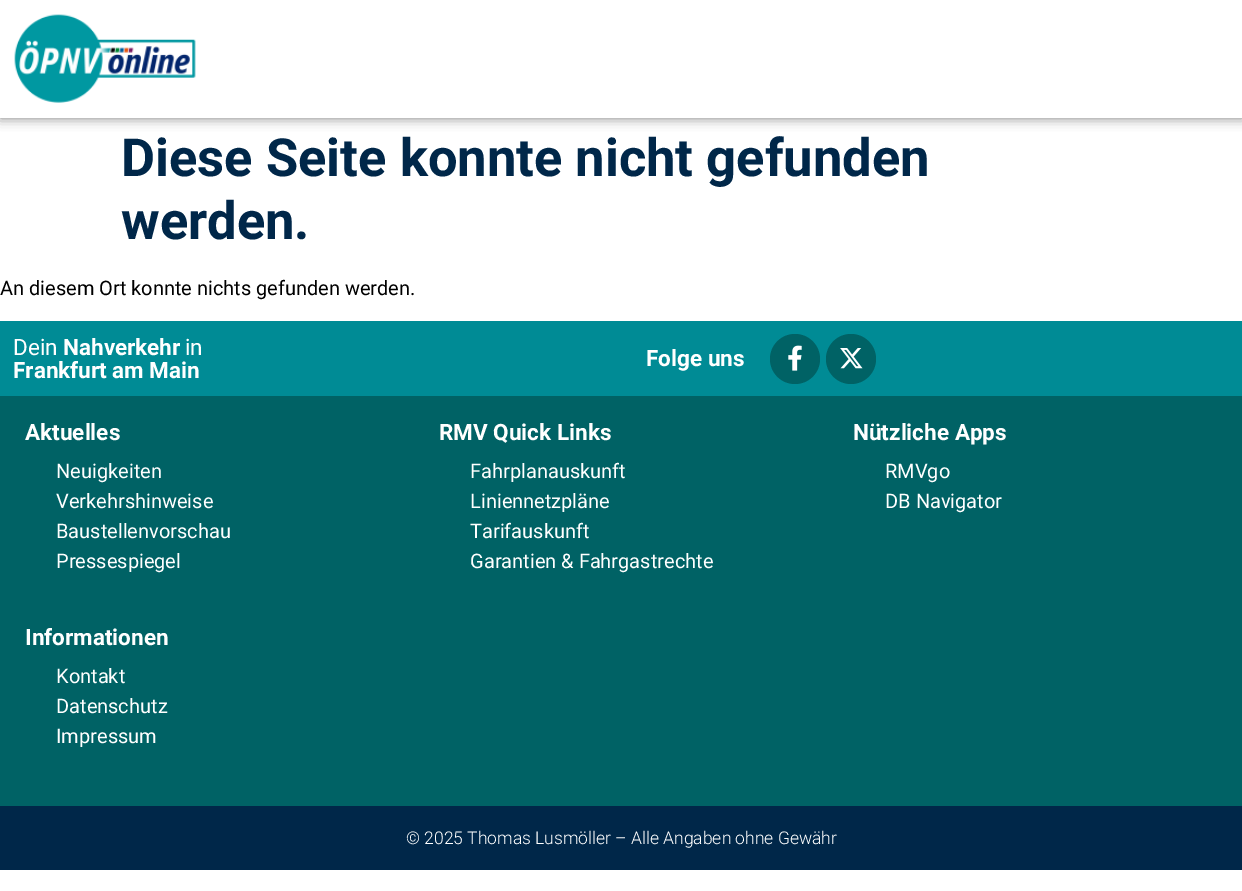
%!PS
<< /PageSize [1242 891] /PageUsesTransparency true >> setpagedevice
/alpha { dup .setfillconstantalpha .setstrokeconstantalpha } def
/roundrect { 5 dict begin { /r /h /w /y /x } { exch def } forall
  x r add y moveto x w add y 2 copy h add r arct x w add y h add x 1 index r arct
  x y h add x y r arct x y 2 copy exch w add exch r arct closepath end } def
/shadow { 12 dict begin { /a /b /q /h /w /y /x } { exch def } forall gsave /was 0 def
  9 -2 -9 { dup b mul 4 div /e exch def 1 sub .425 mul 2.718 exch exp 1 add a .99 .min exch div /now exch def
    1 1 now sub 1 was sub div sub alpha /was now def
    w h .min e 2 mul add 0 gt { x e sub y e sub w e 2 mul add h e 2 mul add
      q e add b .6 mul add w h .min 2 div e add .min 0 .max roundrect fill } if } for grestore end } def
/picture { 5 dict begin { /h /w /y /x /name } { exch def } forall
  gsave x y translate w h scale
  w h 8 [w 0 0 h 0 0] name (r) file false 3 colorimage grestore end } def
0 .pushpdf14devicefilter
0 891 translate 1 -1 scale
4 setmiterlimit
1 setgray
0 0 1242 891 rectfill
0 setgray
0 0 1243 118 0 6 0.5 shadow
1 setgray
0 0 1242 118 rectfill
(img1.rgb) 14 14 182 89 picture
/Roboto-Bold [52.5 0 0 -52.5 0 0] selectfont
0 0.153 0.286 setrgbcolor
121 176 moveto (Diese Seite konnte nicht gefunden) show
121 239 moveto (werden.) show
/Roboto-Regular [20 0 0 -20 0 0] selectfont
0 setgray
0 295 moveto (An diesem Ort konnte nichts gefunden werden.) show
0 0.545 0.584 setrgbcolor
0 321 1242 75 rectfill
/Roboto-Regular [22.5 0 0 -22.5 0 0] selectfont
1 setgray
13 355 moveto (Dein) show
/Roboto-Bold [22.5 0 0 -22.5 0 0] selectfont
63 355 moveto (Nahverkehr) show
/Roboto-Regular [22.5 0 0 -22.5 0 0] selectfont
185 355 moveto (in) show
/Roboto-Bold [22.5 0 0 -22.5 0 0] selectfont
13 378 moveto (Frankfurt am Main) show
646 366 moveto (Folge uns) show
0 0.384 0.396 setrgbcolor
newpath 795 359 25 0 360 arc closepath fill
(img2.rgb) 788 345 14 26 picture
newpath 851 359 25 0 360 arc closepath fill
(img3.rgb) 840 348 23 21 picture
0 396 1242 410 rectfill
1 setgray
25 440 moveto (Aktuelles) show
/Roboto-Regular [20 0 0 -20 0 0] selectfont
56 478 moveto (Neuigkeiten) show
56 508 moveto (Verkehrshinweise) show
56 538 moveto (Baustellenvorschau) show
56 568 moveto (Pressespiegel) show
/Roboto-Bold [22.5 0 0 -22.5 0 0] selectfont
439 440 moveto (RMV Quick Links) show
/Roboto-Regular [20 0 0 -20 0 0] selectfont
470 478 moveto (Fahrplanauskunft) show
470 508 moveto (Liniennetzpläne) show
470 538 moveto (Tarifauskunft) show
470 568 moveto (Garantien & Fahrgastrechte) show
/Roboto-Bold [22.5 0 0 -22.5 0 0] selectfont
853 440 moveto (Nützliche Apps) show
/Roboto-Regular [20 0 0 -20 0 0] selectfont
885 478 moveto (RMVgo) show
885 508 moveto (DB Navigator) show
/Roboto-Bold [22.5 0 0 -22.5 0 0] selectfont
25 645 moveto (Informationen) show
/Roboto-Regular [20 0 0 -20 0 0] selectfont
56 683 moveto (Kontakt) show
56 713 moveto (Datenschutz) show
56 743 moveto (Impressum) show
0 0.153 0.286 setrgbcolor
0 806 1242 64 rectfill
/Roboto-Light [17.5 0 0 -17.5 0 0] selectfont
1 setgray
406 844 moveto (© 2025 Thomas Lusmöller – Alle Angaben ohne Gewähr) show
.poppdf14devicefilter showpage
